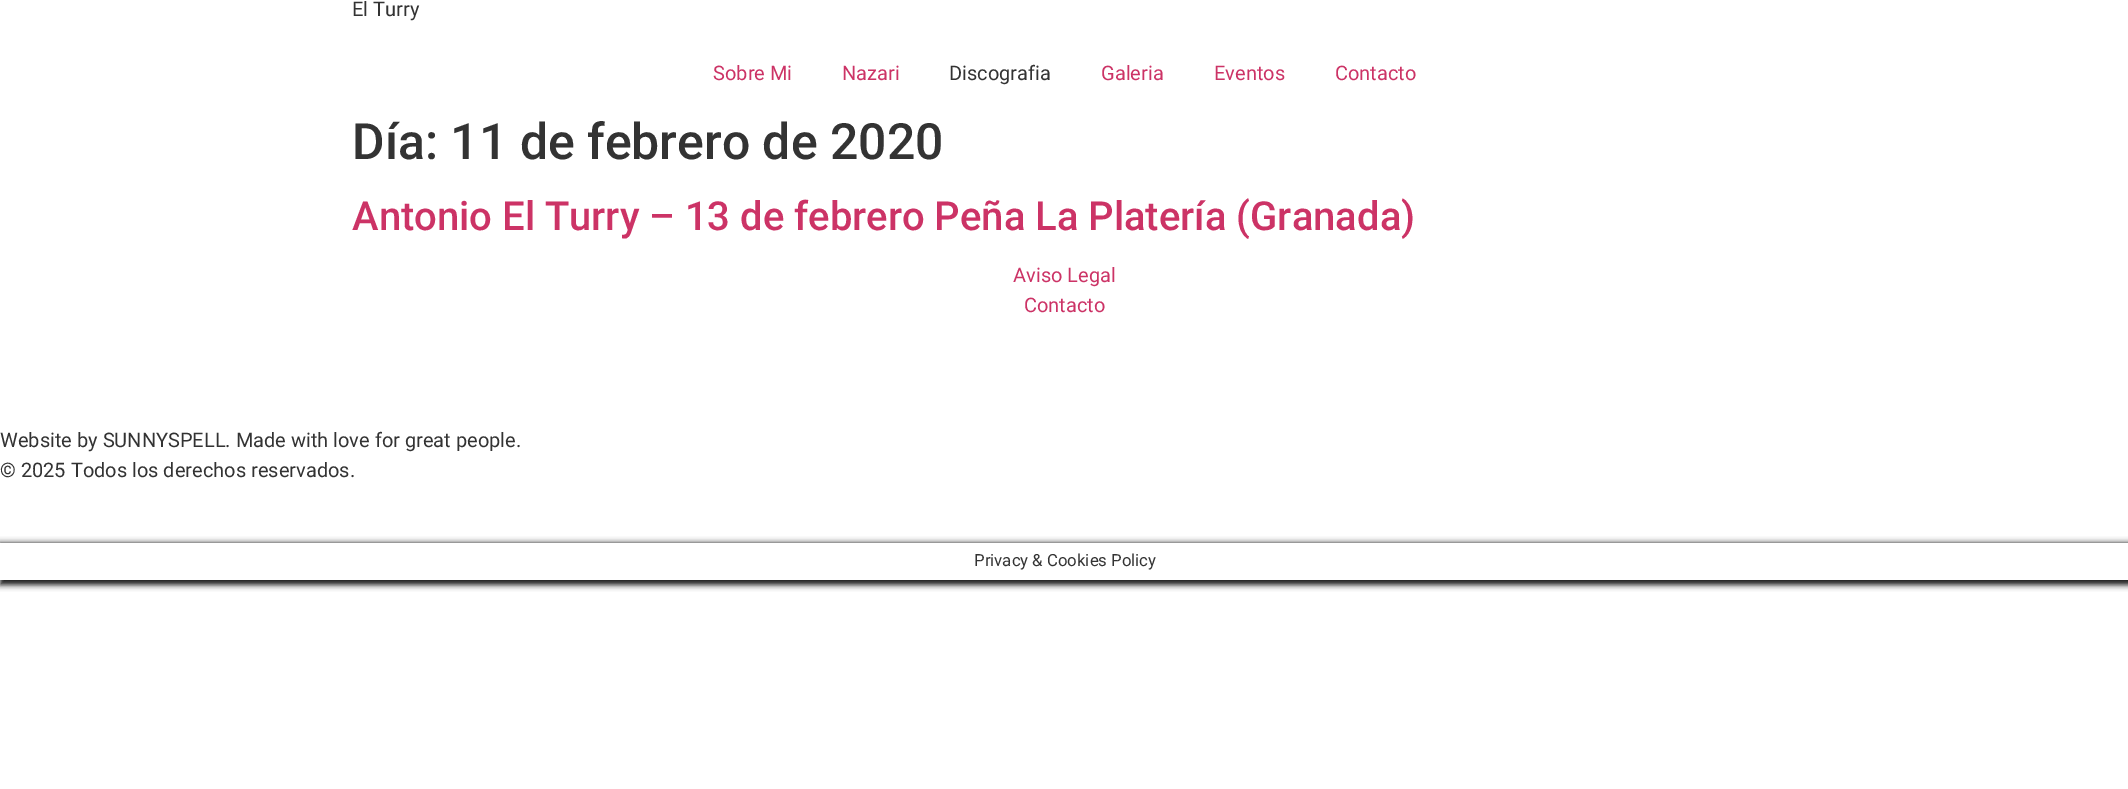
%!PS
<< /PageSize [2128 789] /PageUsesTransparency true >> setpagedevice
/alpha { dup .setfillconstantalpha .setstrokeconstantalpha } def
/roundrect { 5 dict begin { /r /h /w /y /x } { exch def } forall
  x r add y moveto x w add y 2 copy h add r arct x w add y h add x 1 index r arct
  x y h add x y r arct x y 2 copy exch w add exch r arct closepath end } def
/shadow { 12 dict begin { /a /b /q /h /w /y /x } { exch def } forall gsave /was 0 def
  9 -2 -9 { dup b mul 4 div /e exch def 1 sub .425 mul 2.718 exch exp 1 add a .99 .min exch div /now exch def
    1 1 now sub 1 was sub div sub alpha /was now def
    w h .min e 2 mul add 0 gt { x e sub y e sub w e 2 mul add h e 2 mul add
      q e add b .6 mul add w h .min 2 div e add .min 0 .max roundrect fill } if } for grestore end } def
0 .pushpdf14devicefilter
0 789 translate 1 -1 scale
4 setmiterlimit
1 setgray
0 0 2128 789 rectfill
/Roboto-Regular [20 0 0 -20 0 0] selectfont
0.2 setgray
352 16 moveto (El Turry) show
0.8 0.2 0.4 setrgbcolor
713 80 moveto (Sobre Mi) show
842 80 moveto (Nazari) show
0.2 setgray
949 80 moveto (Discografia) show
0.8 0.2 0.4 setrgbcolor
1101 80 moveto (Galeria) show
1214 80 moveto (Eventos) show
1335 80 moveto (Contacto) show
/Roboto-Medium [50 0 0 -50 0 0] selectfont
0.2 setgray
352 159 moveto (Día: 11 de febrero de 2020) show
/Roboto-Medium [40 0 0 -40 0 0] selectfont
0.8 0.2 0.4 setrgbcolor
352 230 moveto (Antonio El Turry – 13 de febrero Peña La Platería \(Granada\)) show
/Roboto-Regular [20 0 0 -20 0 0] selectfont
1013 282 moveto (Aviso Legal) show
1024 312 moveto (Contacto) show
0.2 setgray
0 447 moveto (Website by SUNNYSPELL. Made with love for great people.) show
0 477 moveto (© 2025 Todos los derechos reservados.) show
gsave
newpath 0 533 moveto 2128 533 lineto 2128 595 lineto 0 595 lineto closepath 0 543 moveto 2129 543 lineto 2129 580 lineto 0 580 lineto closepath eoclip newpath
0.086 setgray
0 543 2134 42 0 3 1 shadow
grestore
/Roboto-Regular [16.75 0 0 -16.75 0 0] selectfont
974 566 moveto (Privacy & Cookies Policy) show
.poppdf14devicefilter showpage
